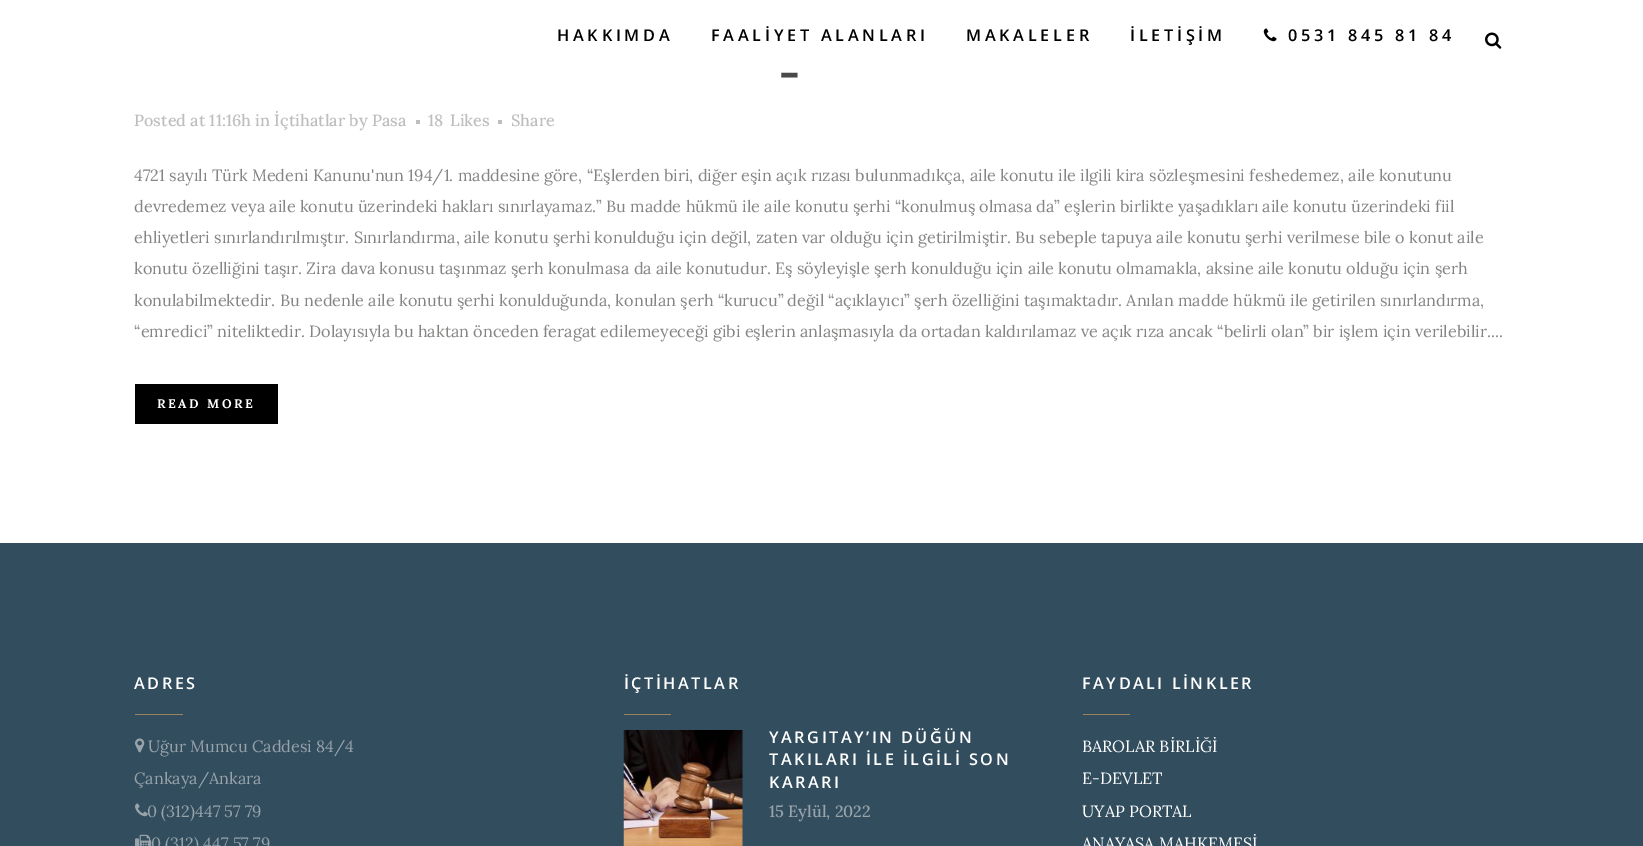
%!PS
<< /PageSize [1643 846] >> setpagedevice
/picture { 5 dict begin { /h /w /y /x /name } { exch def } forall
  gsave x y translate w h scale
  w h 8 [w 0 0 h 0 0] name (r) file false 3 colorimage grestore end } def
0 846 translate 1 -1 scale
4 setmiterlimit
1 setgray
0 0 1643 846 rectfill
/OpenSans-SemiBold [16.25 0 0 -16.25 0 0] selectfont
0 setgray
557 41 moveto 3.75 0 (HAKKIMDA) ashow
711 41 moveto 3.75 0 (FAALİYET ALANLARI) ashow
966 41 moveto 3.75 0 (MAKALELER) ashow
1130 41 moveto 3.75 0 (İLETİŞİM) ashow
(img1.rgb) 1263 28 14 14 picture
1288 41 moveto 3.75 0 (0531 845 81 84) ashow
(img2.rgb) 1485 32 17 17 picture
/Lora-Bold [44 0 0 -44 0 0] selectfont
0.286 setgray
779 89 moveto 1 0 (-) ashow
/Lora-Medium [16.25 0 0 -16.25 0 0] selectfont
0.745 setgray
134 126 moveto (Posted at 11:16h in İçtihatlar by Pasa) show
416 120 4 4 rectfill
428 126 moveto (18) show
450 126 moveto (Likes) show
498 120 4 4 rectfill
511 126 moveto (Share) show
/Lora-Regular [16.25 0 0 -16.25 0 0] selectfont
0.522 0.518 0.514 setrgbcolor
134 181 moveto (4721 sayılı Türk Medeni Kanunu'nun 194/1. maddesine göre, “Eşlerden biri, diğer eşin açık rızası bulunmadıkça, aile konutu ile ilgili kira sözleşmesini feshedemez, aile konutunu) show
134 212 moveto (devredemez veya aile konutu üzerindeki hakları sınırlayamaz.” Bu madde hükmü ile aile konutu şerhi “konulmuş olmasa da” eşlerin birlikte yaşadıkları aile konutu üzerindeki fiil) show
134 243 moveto (ehliyetleri sınırlandırılmıştır. Sınırlandırma, aile konutu şerhi konulduğu için değil, zaten var olduğu için getirilmiştir. Bu sebeple tapuya aile konutu şerhi verilmese bile o konut aile) show
134 274 moveto (konutu özelliğini taşır. Zira dava konusu taşınmaz şerh konulmasa da aile konutudur. Eş söyleyişle şerh konulduğu için aile konutu olmamakla, aksine aile konutu olduğu için şerh) show
134 306 moveto (konulabilmektedir. Bu nedenle aile konutu şerhi konulduğunda, konulan şerh “kurucu” değil “açıklayıcı” şerh özelliğini taşımaktadır. Anılan madde hükmü ile getirilen sınırlandırma,) show
134 337 moveto (“emredici” niteliktedir. Dolayısıyla bu haktan önceden feragat edilemeyeceği gibi eşlerin anlaşmasıyla da ortadan kaldırılamaz ve açık rıza ancak “belirli olan” bir işlem için verilebilir....) show
0 setgray
135 384 143 40 rectfill
/Lora-Bold [12.5 0 0 -12.5 0 0] selectfont
1 setgray
157 408 moveto 2.5 0 (READ MORE) ashow
0.192 0.302 0.369 setrgbcolor
0 543 1643 303 rectfill
/OpenSans-SemiBold [16.25 0 0 -16.25 0 0] selectfont
1 setgray
134 689 moveto 2.5 0 (ADRES) ashow
0.608 0.51 0.369 setrgbcolor
135 714 48 1 rectfill
(img3.rgb) 135 738 10 15 picture
/Lora-Regular [16.25 0 0 -16.25 0 0] selectfont
0.6 0.639 0.667 setrgbcolor
148 752 moveto (Uğur Mumcu Caddesi 84/4) show
134 784 moveto (Çankaya/Ankara) show
(img4.rgb) 135 803 13 14 picture
147 817 moveto (0 \(312\)447 57 79) show
(img5.rgb) 135 834 17 12 picture
151 849 moveto (0 \(312\) 447 57 79) show
/OpenSans-SemiBold [16.25 0 0 -16.25 0 0] selectfont
1 setgray
624 689 moveto 2.5 0 (İÇTİHATLAR) ashow
0.608 0.51 0.369 setrgbcolor
624 714 47 1 rectfill
(img6.rgb) 623 730 120 116 picture
1 setgray
769 743 moveto 2.5 0 (YARGITAY’IN DÜĞÜN) ashow
769 765 moveto 2.5 0 (TAKILARI İLE İLGİLİ SON) ashow
769 788 moveto 2.5 0 (KARARI) ashow
/Lora-Medium [16.25 0 0 -16.25 0 0] selectfont
0.6 0.639 0.667 setrgbcolor
769 817 moveto (15 Eylül, 2022) show
/OpenSans-SemiBold [16.25 0 0 -16.25 0 0] selectfont
1 setgray
1082 689 moveto 2.5 0 (FAYDALI LİNKLER) ashow
0.608 0.51 0.369 setrgbcolor
1083 714 47 1 rectfill
/Lora-Regular [16.25 0 0 -16.25 0 0] selectfont
1 setgray
1082 752 moveto (BAROLAR BİRLİĞİ) show
1082 784 moveto (E-DEVLET) show
1082 817 moveto (UYAP PORTAL) show
1082 849 moveto (ANAYASA MAHKEMESİ) show
showpage
